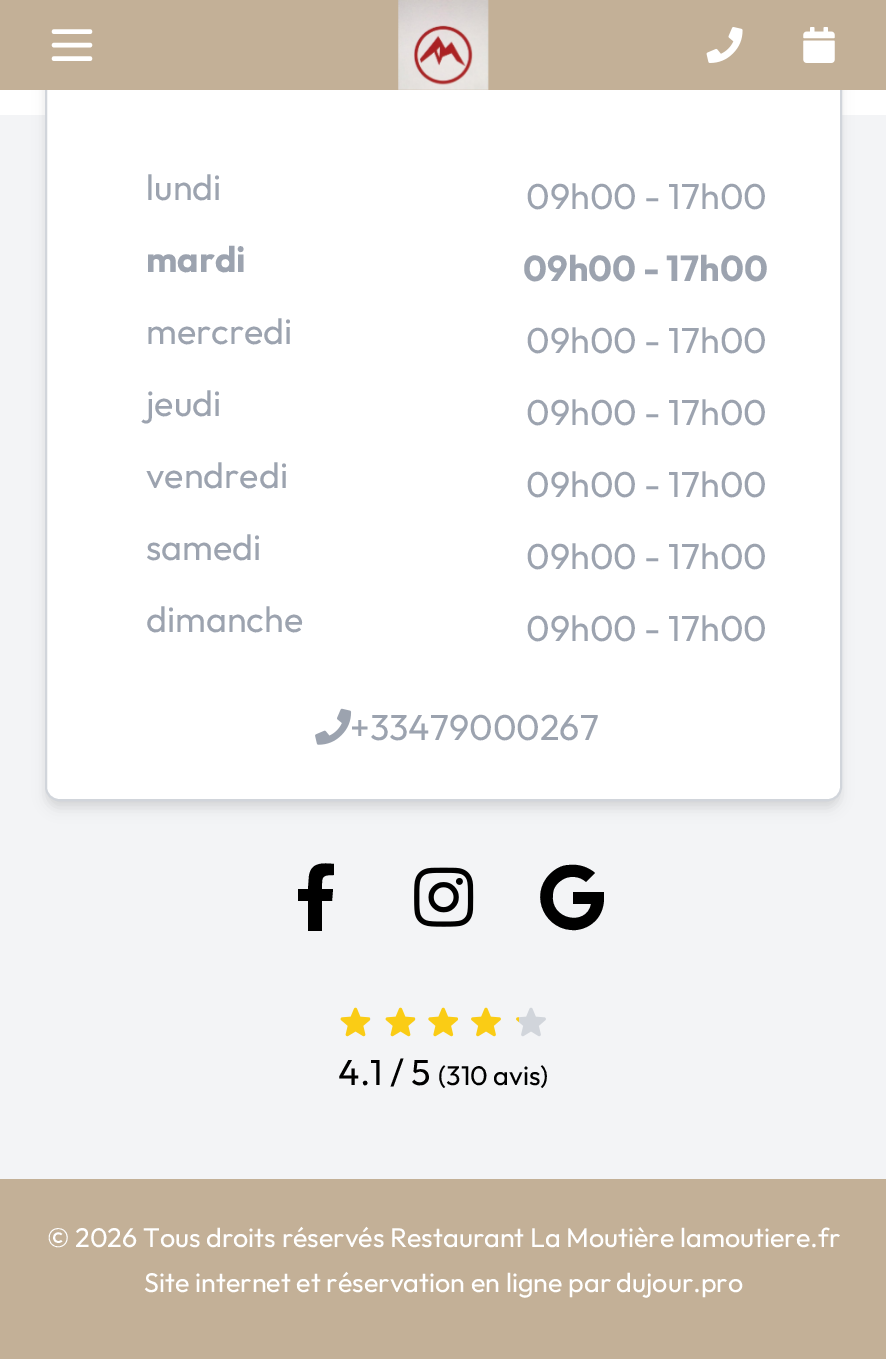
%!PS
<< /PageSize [886 1359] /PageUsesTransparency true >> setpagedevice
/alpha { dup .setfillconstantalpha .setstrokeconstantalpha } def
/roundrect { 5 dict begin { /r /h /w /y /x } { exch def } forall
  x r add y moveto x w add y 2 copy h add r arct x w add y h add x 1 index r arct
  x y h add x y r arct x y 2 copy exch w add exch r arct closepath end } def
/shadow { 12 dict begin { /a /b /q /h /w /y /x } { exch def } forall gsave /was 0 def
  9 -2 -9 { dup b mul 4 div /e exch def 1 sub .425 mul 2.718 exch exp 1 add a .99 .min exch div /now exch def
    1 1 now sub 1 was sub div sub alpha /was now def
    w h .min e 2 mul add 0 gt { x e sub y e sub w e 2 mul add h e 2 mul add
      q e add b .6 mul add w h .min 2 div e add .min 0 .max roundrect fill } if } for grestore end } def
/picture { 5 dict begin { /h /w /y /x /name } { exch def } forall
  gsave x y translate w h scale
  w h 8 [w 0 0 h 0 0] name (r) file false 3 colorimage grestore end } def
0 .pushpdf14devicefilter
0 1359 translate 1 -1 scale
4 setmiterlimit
1 setgray
0 0 886 1359 rectfill
0.953 0.957 0.965 setrgbcolor
0 115 886 1064 rectfill
0 setgray
47 -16 792 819 11 4.5 0.06 shadow
47 -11 792 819 11 7 0.1 shadow
1 setgray
46 -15 795 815 13 roundrect gsave fill grestore
0.82 0.835 0.859 setrgbcolor
2 setlinewidth
stroke
0.765 0.69 0.592 setrgbcolor
0 0 886 90 rectfill
1 setgray
4.5 setlinewidth
1 setlinecap
1 setlinejoin
newpath 54 31.5 moveto 90 31.5 lineto 54 45 moveto 90 45 lineto 54 58.5 moveto 90 58.5 lineto stroke
(img1.rgb) 398 0 91 90 picture
(img2.rgb) 706 27 37 36 picture
(img3.rgb) 803 27 32 36 picture
/Outfit-Regular [36 0 0 -36 0 0] selectfont
0.612 0.639 0.686 setrgbcolor
146 200 moveto (lundi) show
526 209 moveto (09h00 - 17h00) show
/Outfit-Bold [36 0 0 -36 0 0] selectfont
146 272 moveto (mardi) show
523 281 moveto (09h00 - 17h00) show
/Outfit-Regular [36 0 0 -36 0 0] selectfont
146 344 moveto (mercredi) show
526 353 moveto (09h00 - 17h00) show
146 416 moveto (jeudi) show
526 425 moveto (09h00 - 17h00) show
146 488 moveto (vendredi) show
526 497 moveto (09h00 - 17h00) show
146 560 moveto (samedi) show
526 569 moveto (09h00 - 17h00) show
146 632 moveto (dimanche) show
526 641 moveto (09h00 - 17h00) show
(img4.rgb) 315 708 37 37 picture
350 740 moveto (+33479000267) show
0 setgray
newpath 332 901 moveto 322 901 lineto 322 931 lineto 308 931 lineto 308 901 lineto 298 901 lineto 298 889 lineto 308 889 lineto 309 876 lineto 311 862 323 863 334 864 curveto 334 875 lineto 321 875 322 877 322 889 curveto 333 889 lineto closepath fill
(img5.rgb) 414 867 60 60 picture
newpath 604 898 moveto 604 915 593 928 576 930 curveto 546 932 528 896 550 874 curveto 555 869 562 865 569 865 curveto 579 864 588 867 595 873 curveto 586 882 lineto 580 876 569 875 562 880 curveto 557 883 553 888 553 894 curveto 549 920 587 927 591 904 curveto 573 904 lineto 573 892 lineto 604 892 lineto closepath fill
(img6.rgb) 340 1007 31 30 picture
(img6.rgb) 385 1007 31 30 picture
(img7.rgb) 428 1007 30 30 picture
(img8.rgb) 471 1007 30 30 picture
(img9.rgb) 516 1007 30 30 picture
338 1085 moveto (4.1 / 5) show
/Outfit-Regular [27 0 0 -27 0 0] selectfont
438 1085 moveto (\(310 avis\)) show
0.765 0.69 0.592 setrgbcolor
0 1179 886 180 rectfill
1 setgray
47 1247 moveto (© 2026 Tous droits réservés Restaurant La Moutière lamoutiere.fr) show
144 1292 moveto (Site internet et réservation en ligne par dujour.pro) show
.poppdf14devicefilter showpage
